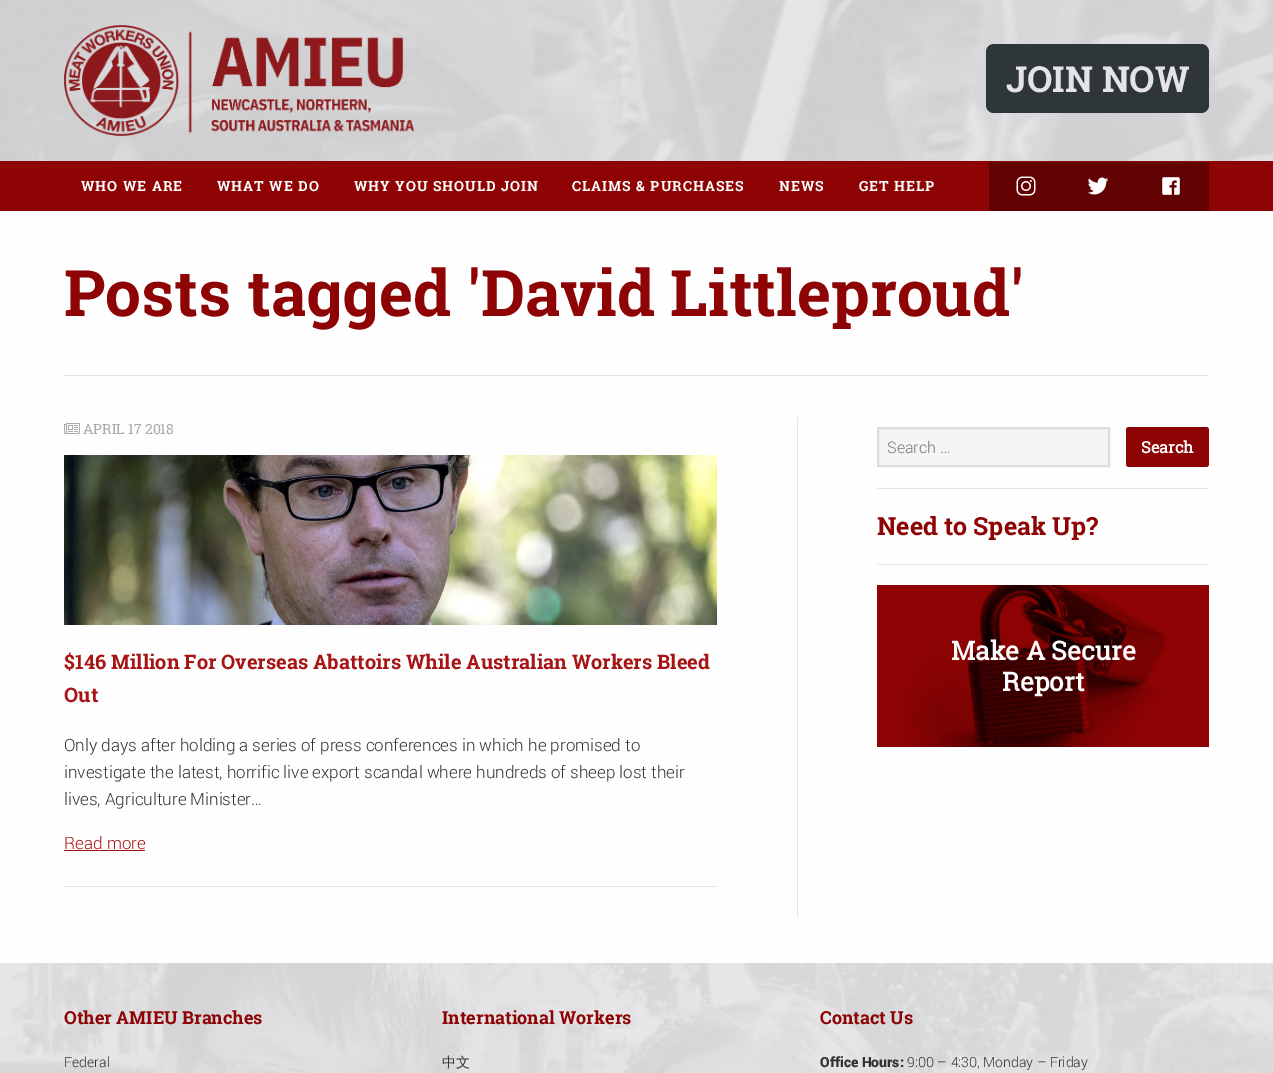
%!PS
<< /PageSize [1273 1073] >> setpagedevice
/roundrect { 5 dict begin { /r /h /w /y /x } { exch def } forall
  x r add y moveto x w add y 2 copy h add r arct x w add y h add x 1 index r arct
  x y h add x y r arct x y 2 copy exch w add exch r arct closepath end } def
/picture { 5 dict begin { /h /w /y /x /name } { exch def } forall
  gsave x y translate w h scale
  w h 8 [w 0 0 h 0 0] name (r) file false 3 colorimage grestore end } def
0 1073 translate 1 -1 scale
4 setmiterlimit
0.557 0.012 0.012 setrgbcolor
0 0 1273 1073 rectfill
(img1.rgb) 0 0 1273 161 picture
(img2.rgb) 64 25 350 111 picture
0.18 0.212 0.227 setrgbcolor
986 44 223 69 8 roundrect fill
/RobotoSlab-Bold [36 0 0 -36 0 0] selectfont
0.894 0.894 0.902 setrgbcolor
1006 92 moveto (JOIN NOW) show
/RobotoSlab-Bold [14 0 0 -14 0 0] selectfont
1 setgray
81 191 moveto 1 0 (WHO WE ARE) ashow
217 191 moveto 1 0 (WHAT WE DO) ashow
354 191 moveto 1 0 (WHY YOU SHOULD JOIN) ashow
572 191 moveto 1 0 (CLAIMS & PURCHASES) ashow
779 191 moveto 1 0 (NEWS) ashow
859 191 moveto 1 0 (GET HELP) ashow
0.38 0.004 0.004 setrgbcolor
989 162 220 49 rectfill
(img3.rgb) 1016 176 20 20 picture
(img4.rgb) 1087 177 22 18 picture
(img5.rgb) 1162 177 18 18 picture
0.996 setgray
0 211 1273 752 rectfill
0.894 0.894 0.902 setrgbcolor
64 375 1145 1 rectfill
/RobotoSlab-Bold [64 0 0 -64 0 0] selectfont
0.557 0.012 0.012 setrgbcolor
64 316 moveto (Posts tagged 'David Littleproud') show
0.894 0.894 0.902 setrgbcolor
797 417 1 501 rectfill
(img6.rgb) 64 423 16 11 picture
/RobotoSlab-Regular [14 0 0 -14 0 0] selectfont
0.667 setgray
83 434 moveto (APRIL 17 2018) show
(img7.rgb) 64 455 653 170 picture
/RobotoSlab-Bold [20 0 0 -20 0 0] selectfont
0.659 0.075 0.075 setrgbcolor
64 669 moveto ($146 Million For Overseas Abattoirs While Australian Workers Bleed) show
64 702 moveto (Out) show
/Roboto-Light [17 0 0 -17 0 0] selectfont
0.2 setgray
64 751 moveto (Only days after holding a series of press conferences in which he promised to) show
64 778 moveto (investigate the latest, horrific live export scandal where hundreds of sheep lost their) show
64 805 moveto (lives, Agriculture Minister…) show
0.659 0.075 0.075 setrgbcolor
64 849 moveto (Read more) show
64 850 81 1 rectfill
0.894 0.894 0.902 setrgbcolor
64 886 653 1 rectfill
0.961 setgray
newpath 878 428 moveto 1109 428 lineto 1109 466 lineto 878 466 lineto closepath gsave fill grestore
0.867 setgray
2 setlinewidth
stroke
/Roboto-Light [16 0 0 -16 0 0] selectfont
0.459 setgray
887 453 moveto (Search …) show
0.557 0.012 0.012 setrgbcolor
1126 427 83 40 3 roundrect fill
/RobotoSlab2-Bold [16 0 0 -16 0 0] selectfont
1 setgray
1141 453 moveto (Search) show
0.894 0.894 0.902 setrgbcolor
877 488 332 1 rectfill
877 564 332 1 rectfill
/RobotoSlab-Bold [25 0 0 -25 0 0] selectfont
0.557 0.012 0.012 setrgbcolor
877 535 moveto (Need to Speak Up?) show
(img8.rgb) 877 585 332 162 picture
/RobotoSlab2-Bold [26 0 0 -26 0 0] selectfont
1 setgray
951 660 moveto (Make A Secure) show
1002 691 moveto (Report) show
(img9.rgb) 0 963 1273 110 picture
/RobotoSlab-Bold [18 0 0 -18 0 0] selectfont
0.557 0.012 0.012 setrgbcolor
64 1024 moveto (Other AMIEU Branches) show
/Roboto-Light [14 0 0 -14 0 0] selectfont
0.2 setgray
64 1067 moveto (Federal) show
/RobotoSlab-Bold [18 0 0 -18 0 0] selectfont
0.557 0.012 0.012 setrgbcolor
442 1024 moveto (International Workers) show
/WenQuanYiZenHei-Medium [14 0 0 -14 0 0] selectfont
0.2 setgray
442 1067 moveto (中文) show
/RobotoSlab-Bold [18 0 0 -18 0 0] selectfont
0.557 0.012 0.012 setrgbcolor
820 1024 moveto (Contact Us) show
/Roboto-Black [14 0 0 -14 0 0] selectfont
0.2 setgray
820 1067 moveto (Office Hours:) show
/Roboto-Light [14 0 0 -14 0 0] selectfont
907 1067 moveto (9:00 – 4:30, Monday – Friday) show
showpage
